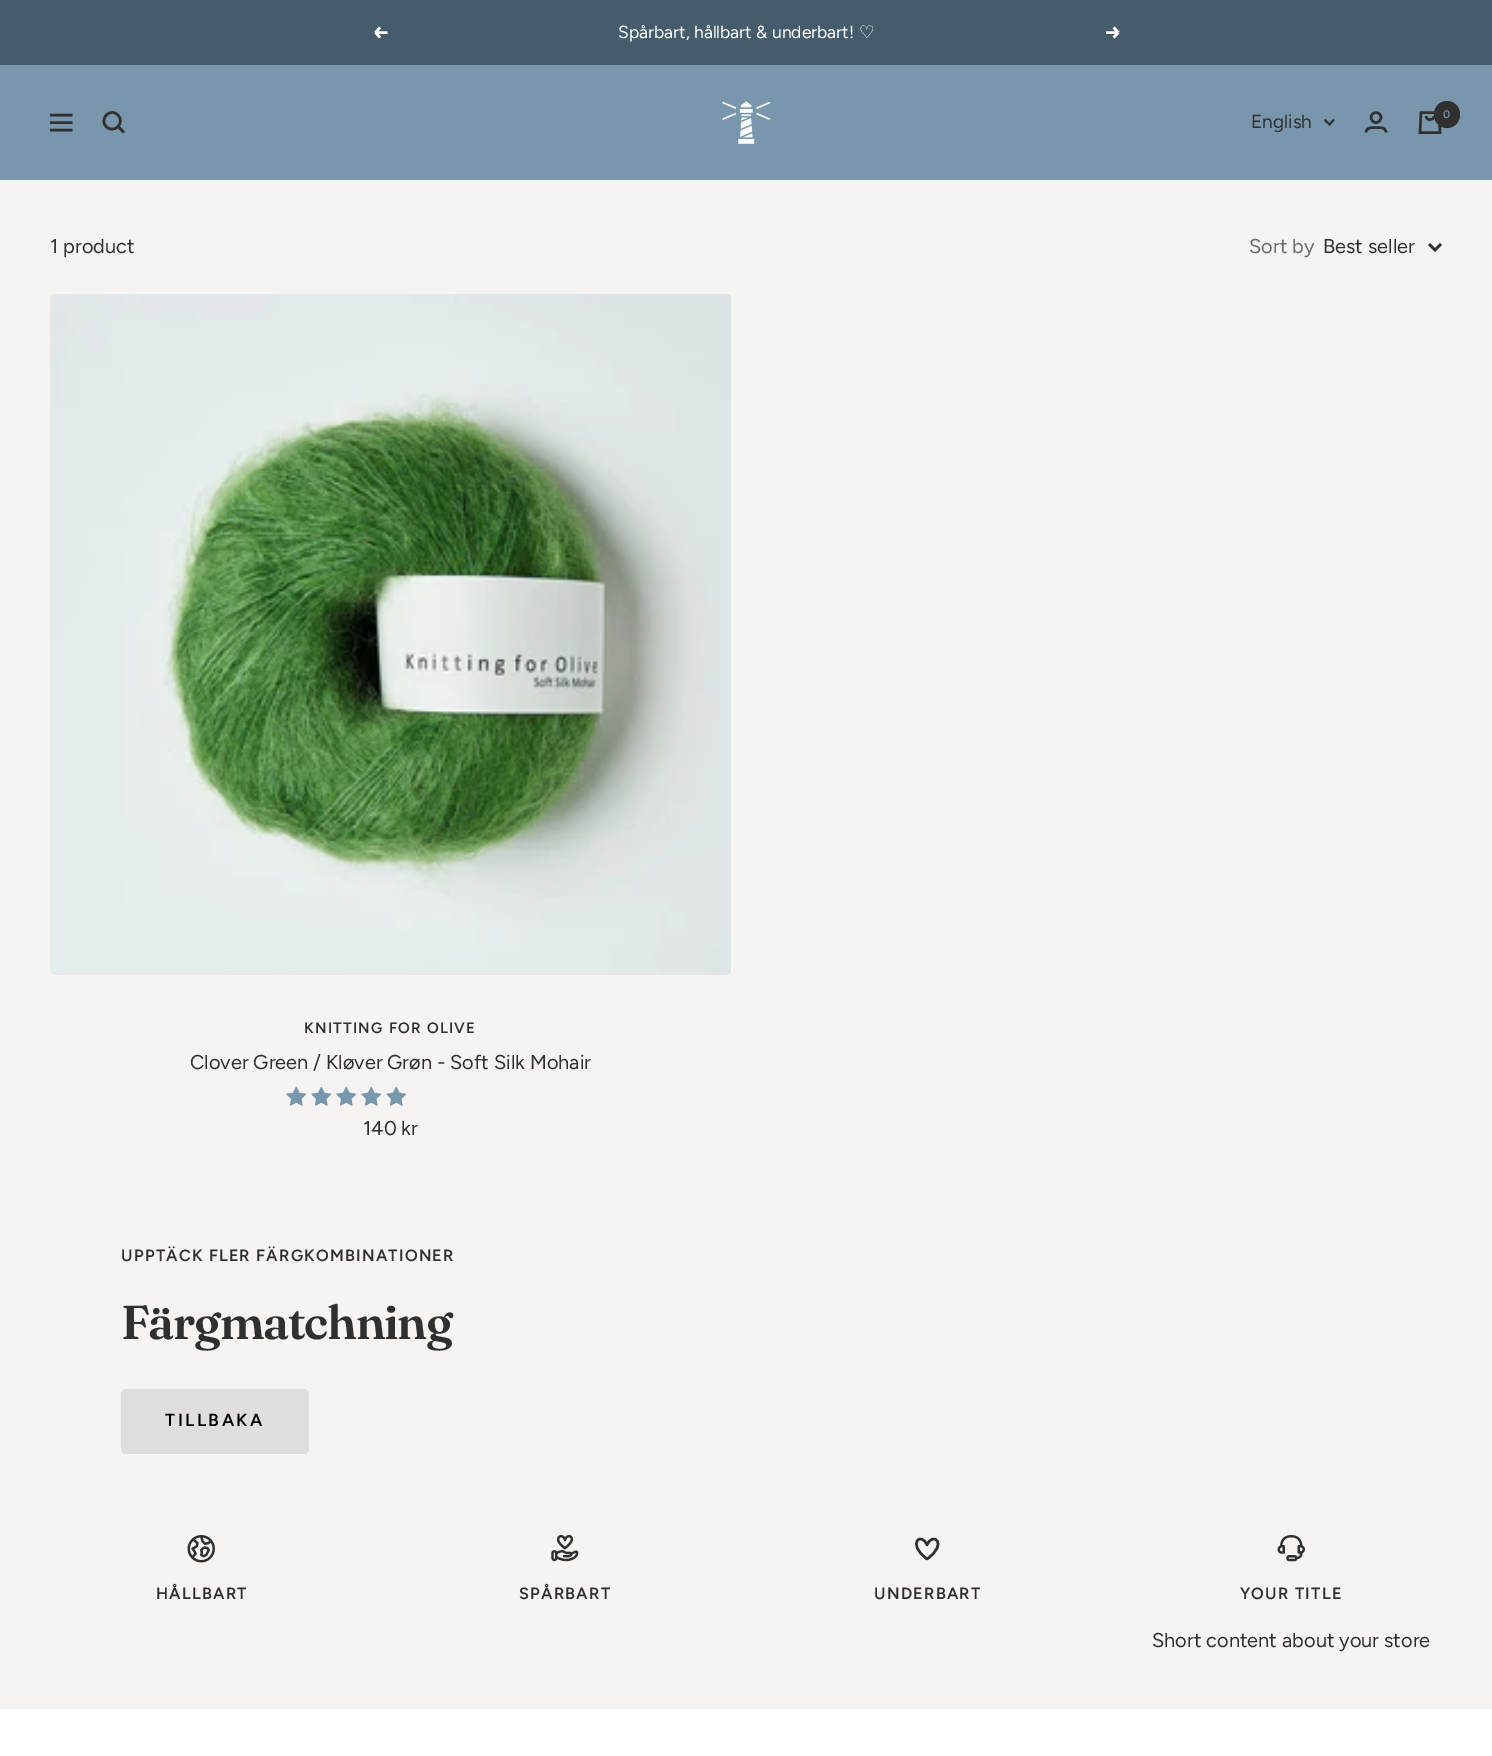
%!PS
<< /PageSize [1492 1756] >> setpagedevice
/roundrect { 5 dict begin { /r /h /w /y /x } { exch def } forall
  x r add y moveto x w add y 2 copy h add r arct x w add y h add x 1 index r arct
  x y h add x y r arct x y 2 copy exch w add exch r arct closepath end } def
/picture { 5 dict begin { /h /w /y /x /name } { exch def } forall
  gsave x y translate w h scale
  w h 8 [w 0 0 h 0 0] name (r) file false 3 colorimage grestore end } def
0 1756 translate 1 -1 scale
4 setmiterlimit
0.961 0.957 0.949 setrgbcolor
0 0 1492 1756 rectfill
0.267 0.361 0.424 setrgbcolor
0 0 1492 65 rectfill
1 setgray
2.5 setlinewidth
newpath 387.5 32.5 moveto 375.5 32.5 lineto 375.5 32.5 moveto 380 37.5 lineto 375.5 32.5 moveto 380 27.5 lineto stroke
/Figtree-Regular [17.5 0 0 -17.5 0 0] selectfont
618 38 moveto (Spårbart, hållbart & underbart!) show
/DejaVuSans-Regular [17.5 0 0 -17.5 0 0] selectfont
859 38 moveto (♡) show
newpath 1106 32.5 moveto 1118.5 32.5 lineto 1118.5 32.5 moveto 1113.5 37.5 lineto 1118.5 32.5 moveto 1113.5 27.5 lineto stroke
0.471 0.592 0.678 setrgbcolor
0 65 1492 115 rectfill
0.188 setgray
newpath 50 115 moveto 72.5 115 lineto 50 130 moveto 72.5 130 lineto closepath 50 122.5 moveto 72.5 122.5 lineto closepath stroke
newpath 118 126.5 moveto 125.5 119 114 107 106.5 115 curveto 98.5 123 110 134.5 118 126.5 curveto closepath 118 126.5 moveto 124 132.5 lineto stroke
(img1.rgb) 722 101 49 43 picture
/Figtree-Regular [19 0 0 -19 0 0] selectfont
1251 128 moveto (English) show
1.9 setlinewidth
newpath 1324.5 119.5 moveto 1329.5 124.5 lineto 1334 119.5 lineto stroke
2.5 setlinewidth
newpath 1376 117.5 5 0 360 arc closepath stroke
newpath 1366 132.5 moveto 1366 127 1372.5 127.5 1376 127.5 curveto 1380 127.5 1386 127 1386 132.5 curveto stroke
newpath 1421 112.5 moveto 1439 112.5 lineto 1440 132.5 lineto 1420 132.5 lineto closepath 1426 116 moveto 1426 121 1434 121 1434 116 curveto stroke
1434 101 26 27 13 roundrect fill
/Figtree-SemiBold [11 0 0 -11 0 0] selectfont
0.471 0.592 0.678 setrgbcolor
1443 118 moveto (0) show
/Figtree-Regular [20 0 0 -20 0 0] selectfont
0.188 setgray
50 253 moveto (1 product) show
0.42 0.42 0.416 setrgbcolor
1249 253 moveto (Sort by) show
0.188 setgray
1323 253 moveto (Best seller) show
newpath 1429 244 moveto 1435 250 lineto 1441 244 lineto stroke
(img2.rgb) 50 294 681 681 picture
/Figtree-SemiBold [15 0 0 -15 0 0] selectfont
304 1033 moveto 1.25 0 (KNITTING FOR OLIVE) ashow
/Figtree-Regular [20 0 0 -20 0 0] selectfont
190 1069 moveto (Clover Green / Kløver Grøn - Soft Silk Mohair) show
(img3.rgb) 286 1086 21 20 picture
(img3.rgb) 311 1086 21 20 picture
(img3.rgb) 336 1086 21 20 picture
(img3.rgb) 361 1086 21 20 picture
(img3.rgb) 386 1086 21 20 picture
363 1135 moveto (140 kr) show
/Figtree-SemiBold [16.25 0 0 -16.25 0 0] selectfont
121 1261 moveto 1.25 0 (UPPTÄCK FLER FÄRGKOMBINATIONER) ashow
/Fraunces-SemiBold [47.5 0 0 -47.5 0 0] selectfont
121 1339 moveto -1.25 0 (Färgmatchning) ashow
0.875 0.871 0.863 setrgbcolor
121 1389 188 65 5 roundrect fill
/Figtree-SemiBold [17.5 0 0 -17.5 0 0] selectfont
0 setgray
165 1426 moveto 2.5 0 (TILLBAKA) ashow
(img4.rgb) 187 1535 28 28 picture
/Figtree-SemiBold [16.25 0 0 -16.25 0 0] selectfont
0.188 setgray
156 1599 moveto 1.25 0 (HÅLLBART) ashow
(img5.rgb) 551 1534 28 28 picture
519 1599 moveto 1.25 0 (SPÅRBART) ashow
1 setlinecap
1 setlinejoin
newpath 927 1559 moveto 906 1543.5 921.5 1531 927 1545 curveto 927 1559 moveto 949 1543.5 932.5 1531 927 1545 curveto stroke
874 1599 moveto 1.25 0 (UNDERBART) ashow
(img6.rgb) 1277 1535 28 27 picture
1240 1599 moveto 1.25 0 (YOUR TITLE) ashow
/Figtree-Regular [20 0 0 -20 0 0] selectfont
1152 1647 moveto (Short content about your store) show
1 setgray
0 1709 1492 47 rectfill
showpage
